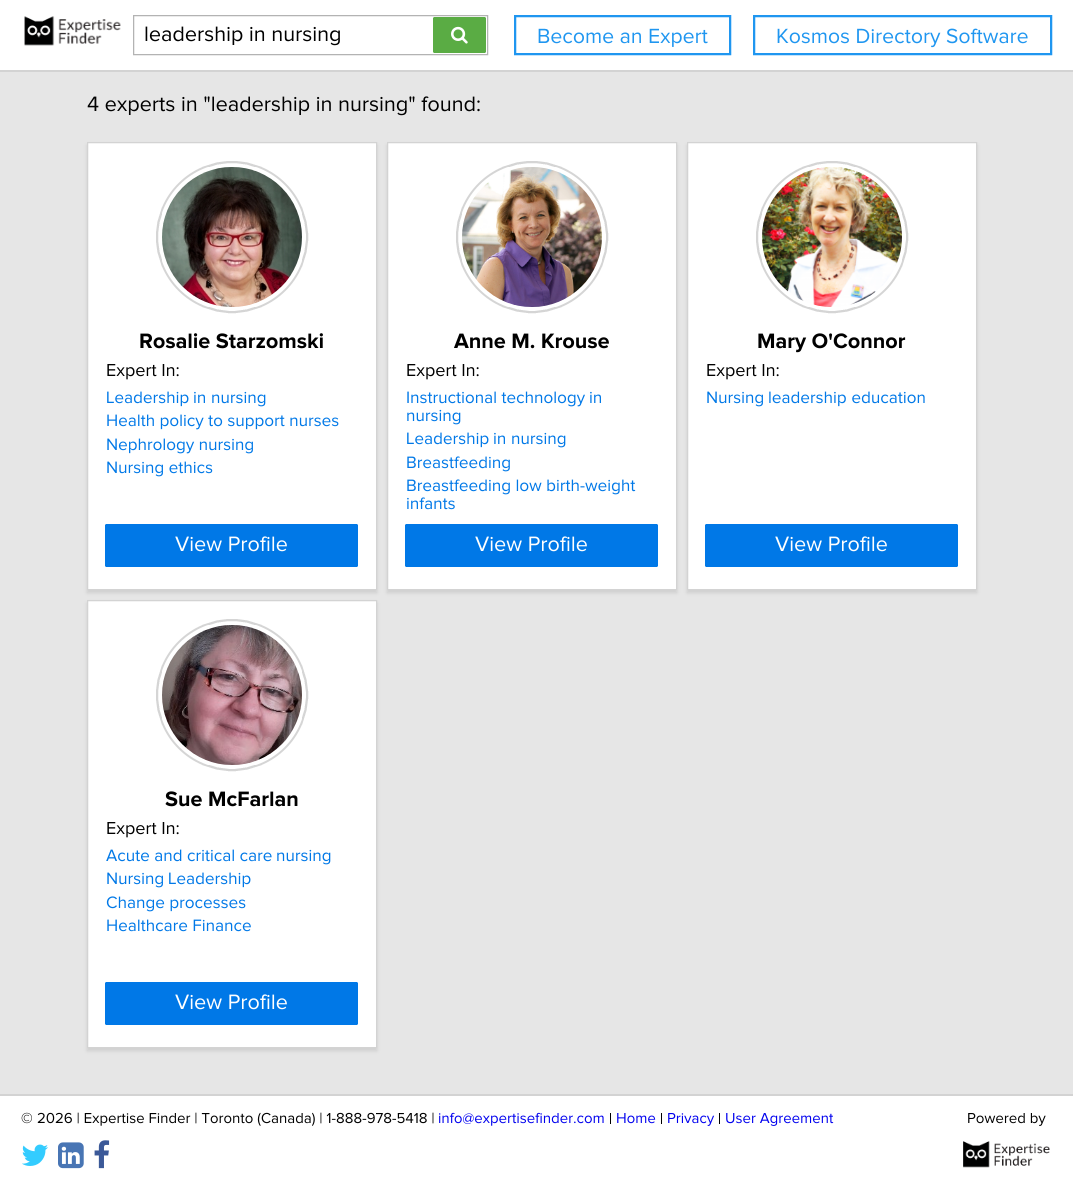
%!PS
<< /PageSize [1073 1186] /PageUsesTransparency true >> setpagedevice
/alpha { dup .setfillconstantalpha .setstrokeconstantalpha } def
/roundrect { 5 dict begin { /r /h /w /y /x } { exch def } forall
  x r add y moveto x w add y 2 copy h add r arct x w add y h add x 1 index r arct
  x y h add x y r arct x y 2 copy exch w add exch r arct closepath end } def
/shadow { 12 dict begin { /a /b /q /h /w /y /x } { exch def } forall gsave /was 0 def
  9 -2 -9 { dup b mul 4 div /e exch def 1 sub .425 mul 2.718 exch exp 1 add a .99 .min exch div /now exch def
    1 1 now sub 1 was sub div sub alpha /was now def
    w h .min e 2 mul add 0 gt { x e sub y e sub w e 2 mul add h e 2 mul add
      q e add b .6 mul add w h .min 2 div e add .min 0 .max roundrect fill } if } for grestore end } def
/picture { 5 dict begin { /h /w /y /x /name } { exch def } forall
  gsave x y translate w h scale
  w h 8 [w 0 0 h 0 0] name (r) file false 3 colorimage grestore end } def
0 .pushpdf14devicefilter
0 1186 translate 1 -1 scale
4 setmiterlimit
0.902 setgray
0 0 1073 1186 rectfill
1 setgray
0 0 1073 70 rectfill
0.827 setgray
0 70 1073 2 rectfill
(img1.rgb) 24 16 97 30 picture
0.702 setgray
133.5 15.5 354 39 rectstroke
(img2.rgb) 145 26 195 20 picture
0.353 0.675 0.267 setrgbcolor
433 17 53 36 2 roundrect fill
(img3.rgb) 451 26 17 18 picture
0.122 0.588 0.941 setrgbcolor
2 setlinewidth
515 16 215 38 rectstroke
(img4.rgb) 538 28 170 19 picture
754 16 297 38 rectstroke
(img5.rgb) 777 28 251 20 picture
(img6.rgb) 87 96 393 20 picture
0 setgray
87 145 290 448 0 1.5 0.09 shadow
1 setgray
newpath 87.5 142.5 moveto 376.5 142.5 lineto 376.5 589.5 lineto 87.5 589.5 lineto closepath gsave fill grestore
0.827 setgray
1 setlinewidth
stroke
0.835 setgray
2 setlinewidth
newpath 232 237 75 0 360 arc closepath stroke
(img7.rgb) 162 167 140 140 picture
(img8.rgb) 140 333 183 16 picture
(img9.rgb) 107 364 72 16 picture
(img10.rgb) 107 391 82 16 picture
(img11.rgb) 194 391 11 12 picture
(img12.rgb) 212 391 54 16 picture
(img13.rgb) 107 414 232 16 picture
(img14.rgb) 107 438 146 16 picture
(img15.rgb) 107 461 106 16 picture
0 0.471 0.906 setrgbcolor
105 524 253 43 2 roundrect fill
(img16.rgb) 175 536 112 16 picture
0 setgray
387 145 290 448 0 1.5 0.09 shadow
1 setgray
newpath 387.5 142.5 moveto 676.5 142.5 lineto 676.5 589.5 lineto 387.5 589.5 lineto closepath gsave fill grestore
0.827 setgray
1 setlinewidth
stroke
0.835 setgray
2 setlinewidth
newpath 532 237 75 0 360 arc closepath stroke
(img17.rgb) 462 167 140 140 picture
(img18.rgb) 454 333 155 16 picture
(img9.rgb) 407 364 72 16 picture
(img19.rgb) 407 391 178 16 picture
(img11.rgb) 590 391 11 12 picture
(img12.rgb) 407 409 54 16 picture
(img10.rgb) 407 432 82 16 picture
(img11.rgb) 494 432 11 12 picture
(img12.rgb) 512 432 54 16 picture
(img20.rgb) 407 456 103 16 picture
(img21.rgb) 407 479 229 16 picture
(img22.rgb) 407 497 48 13 picture
0 0.471 0.906 setrgbcolor
405 524 253 43 2 roundrect fill
(img16.rgb) 475 536 112 16 picture
0 setgray
687 145 290 448 0 1.5 0.09 shadow
1 setgray
newpath 687.5 142.5 moveto 976.5 142.5 lineto 976.5 589.5 lineto 687.5 589.5 lineto closepath gsave fill grestore
0.827 setgray
1 setlinewidth
stroke
0.835 setgray
2 setlinewidth
newpath 832 237 75 0 360 arc closepath stroke
(img23.rgb) 762 167 140 140 picture
(img24.rgb) 758 333 148 20 picture
(img9.rgb) 707 364 72 16 picture
(img25.rgb) 707 391 56 16 picture
(img26.rgb) 769 391 77 16 picture
(img27.rgb) 852 391 73 13 picture
0 0.471 0.906 setrgbcolor
705 524 253 43 2 roundrect fill
(img16.rgb) 775 536 112 16 picture
0 setgray
87 603 290 448 0 1.5 0.09 shadow
1 setgray
newpath 87.5 600.5 moveto 376.5 600.5 lineto 376.5 1047.5 lineto 87.5 1047.5 lineto closepath gsave fill grestore
0.827 setgray
1 setlinewidth
stroke
0.835 setgray
2 setlinewidth
newpath 232 695 75 0 360 arc closepath stroke
(img28.rgb) 162 625 140 140 picture
(img29.rgb) 165 791 133 16 picture
(img9.rgb) 107 822 72 16 picture
(img30.rgb) 106 849 166 13 picture
(img12.rgb) 277 849 54 16 picture
(img25.rgb) 107 872 56 16 picture
(img10.rgb) 169 872 82 16 picture
(img31.rgb) 106 896 140 16 picture
(img32.rgb) 107 919 144 13 picture
0 0.471 0.906 setrgbcolor
105 982 253 43 2 roundrect fill
(img16.rgb) 175 994 112 16 picture
1 setgray
0 1096 1073 90 rectfill
0.827 setgray
0 1094 1073 2 rectfill
(img33.rgb) 21 1112 11 12 picture
(img34.rgb) 37 1112 397 14 picture
(img35.rgb) 439 1112 165 14 picture
0 setgray
610 1113 1 11 rectfill
(img36.rgb) 617 1113 39 11 picture
661 1113 1 11 rectfill
(img37.rgb) 668 1113 47 13 picture
719 1113 1 11 rectfill
(img38.rgb) 726 1113 108 13 picture
(img39.rgb) 22 1144 26 22 picture
(img40.rgb) 58 1142 26 27 picture
(img41.rgb) 94 1140 16 29 picture
(img42.rgb) 968 1113 78 13 picture
(img43.rgb) 963 1141 87 27 picture
.poppdf14devicefilter showpage
